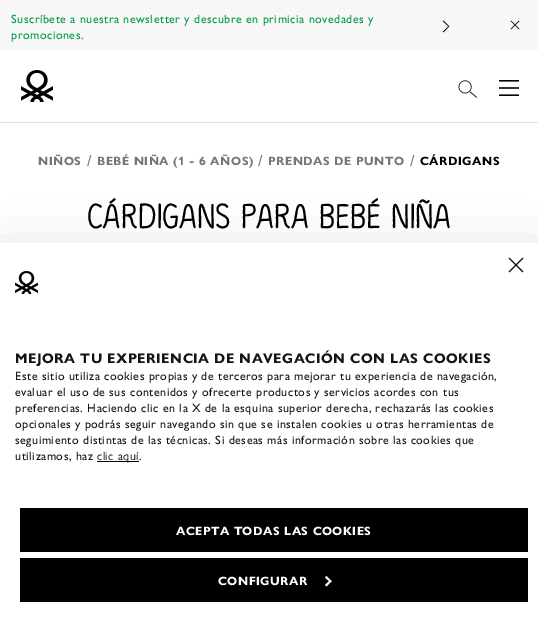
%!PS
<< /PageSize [538 617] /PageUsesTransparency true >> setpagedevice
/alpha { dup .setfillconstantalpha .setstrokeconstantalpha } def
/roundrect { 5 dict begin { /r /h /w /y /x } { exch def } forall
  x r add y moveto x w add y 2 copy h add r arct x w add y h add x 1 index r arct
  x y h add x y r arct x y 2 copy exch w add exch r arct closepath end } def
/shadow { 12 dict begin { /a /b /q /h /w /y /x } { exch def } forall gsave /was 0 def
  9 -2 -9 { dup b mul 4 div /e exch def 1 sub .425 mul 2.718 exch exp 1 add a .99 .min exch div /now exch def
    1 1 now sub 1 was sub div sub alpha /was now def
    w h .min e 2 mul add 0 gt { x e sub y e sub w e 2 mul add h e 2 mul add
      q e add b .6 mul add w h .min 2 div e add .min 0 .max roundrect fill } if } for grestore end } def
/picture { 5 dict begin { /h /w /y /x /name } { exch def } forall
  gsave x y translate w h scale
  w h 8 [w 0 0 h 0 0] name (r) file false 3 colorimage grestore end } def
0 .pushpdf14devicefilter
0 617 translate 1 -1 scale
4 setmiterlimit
1 setgray
0 0 538 617 rectfill
0.871 0.886 0.902 setrgbcolor
0 122 538 1 rectfill
0.969 setgray
0 0 538 50 rectfill
/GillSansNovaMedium-Medium [12 0 0 -12 0 0] selectfont
0 0.596 0.282 setrgbcolor
11 23 moveto 0.5 0 (Suscríbete a nuestra newsletter y descubre en primicia novedades y) ashow
11 39 moveto 0.5 0 (promociones.) ashow
(img1.rgb) 442 20 8 13 picture
(img2.rgb) 510 20 10 10 picture
(img3.rgb) 21 70 32 32 picture
(img4.rgb) 458 80 19 18 picture
(img5.rgb) 499 80 20 16 picture
/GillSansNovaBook-Bold [12 0 0 -12 0 0] selectfont
0.463 setgray
38 165 moveto 0.5 0 (NIÑOS) ashow
/GillSansNovaMedium-Medium [16 0 0 -16 0 0] selectfont
0.424 0.459 0.49 setrgbcolor
87 166 moveto 0.5 0 (/) ashow
/GillSansNovaBook-Bold [12 0 0 -12 0 0] selectfont
0.463 setgray
97 165 moveto 0.5 0 (BEBÉ NIÑA \(1 - 6 AÑOS\)) ashow
/GillSansNovaMedium-Medium [16 0 0 -16 0 0] selectfont
0.424 0.459 0.49 setrgbcolor
258 166 moveto 0.5 0 (/) ashow
/GillSansNovaBook-Bold [12 0 0 -12 0 0] selectfont
0.463 setgray
268 165 moveto 0.5 0 (PRENDAS DE PUNTO) ashow
/GillSansNovaMedium-Medium [16 0 0 -16 0 0] selectfont
0.424 0.459 0.49 setrgbcolor
410 166 moveto 0.5 0 (/) ashow
/GillSansNovaBook-Bold [12 0 0 -12 0 0] selectfont
0 setgray
420 165 moveto 0.5 0 (CÁRDIGANS) ashow
/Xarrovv-Bold [33 0 0 -33 0 0] selectfont
87 228 moveto (CÁRDIGANS PARA BEBÉ NIÑA) show
0 275 538 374 0 34 0.3 shadow
1 setgray
0 243 538 374 rectfill
(img6.rgb) 508 257 16 16 picture
(img7.rgb) 15 271 23 23 picture
/GillSansNovaBook-Bold [14 0 0 -14 0 0] selectfont
0.078 setgray
15 363 moveto 0.5 0 (MEJORA TU EXPERIENCIA DE NAVEGACIÓN CON LAS COOKIES) ashow
/GillSansNovaMedium-Medium [12 0 0 -12 0 0] selectfont
15 380 moveto 0.5 0 (Este sitio utiliza cookies propias y de terceros para mejorar tu experiencia de navegación,) ashow
15 396 moveto 0.5 0 (evaluar el uso de sus contenidos y ofrecerte productos y servicios acordes con tus) ashow
15 412 moveto 0.5 0 (preferencias. Haciendo clic en la X de la esquina superior derecha, rechazarás las cookies) ashow
15 428 moveto 0.5 0 (opcionales y podrás seguir navegando sin que se instalen cookies u otras herramientas de) ashow
15 444 moveto 0.5 0 (seguimiento distintas de las técnicas. Si deseas más información sobre las cookies que) ashow
15 460 moveto 0.5 0 (utilizamos, haz) ashow
0 setgray
97 461 42 1 rectfill
/GillSansNovaBook-Regular [12 0 0 -12 0 0] selectfont
97 460 moveto 0.5 0 (clic aquí) ashow
/GillSansNovaMedium-Medium [12 0 0 -12 0 0] selectfont
0.078 setgray
139 460 moveto 0.5 0 (.) ashow
0 setgray
20 508 508 44 rectfill
/GillSansNovaBook-Bold [12 0 0 -12 0 0] selectfont
1 setgray
176 535 moveto 0.5 0 (ACEPTA TODAS LAS COOKIES) ashow
0 setgray
20 558 508 44 rectfill
1 setgray
218 585 moveto 0.5 0 (CONFIGURAR) ashow
newpath 326.5 576 moveto 331.5 581 lineto 330.5 582.5 lineto 325 577.5 lineto closepath fill
newpath 330.5 580 moveto 331.5 581 lineto 326.5 586.5 lineto 325 585 lineto closepath fill
.poppdf14devicefilter showpage
